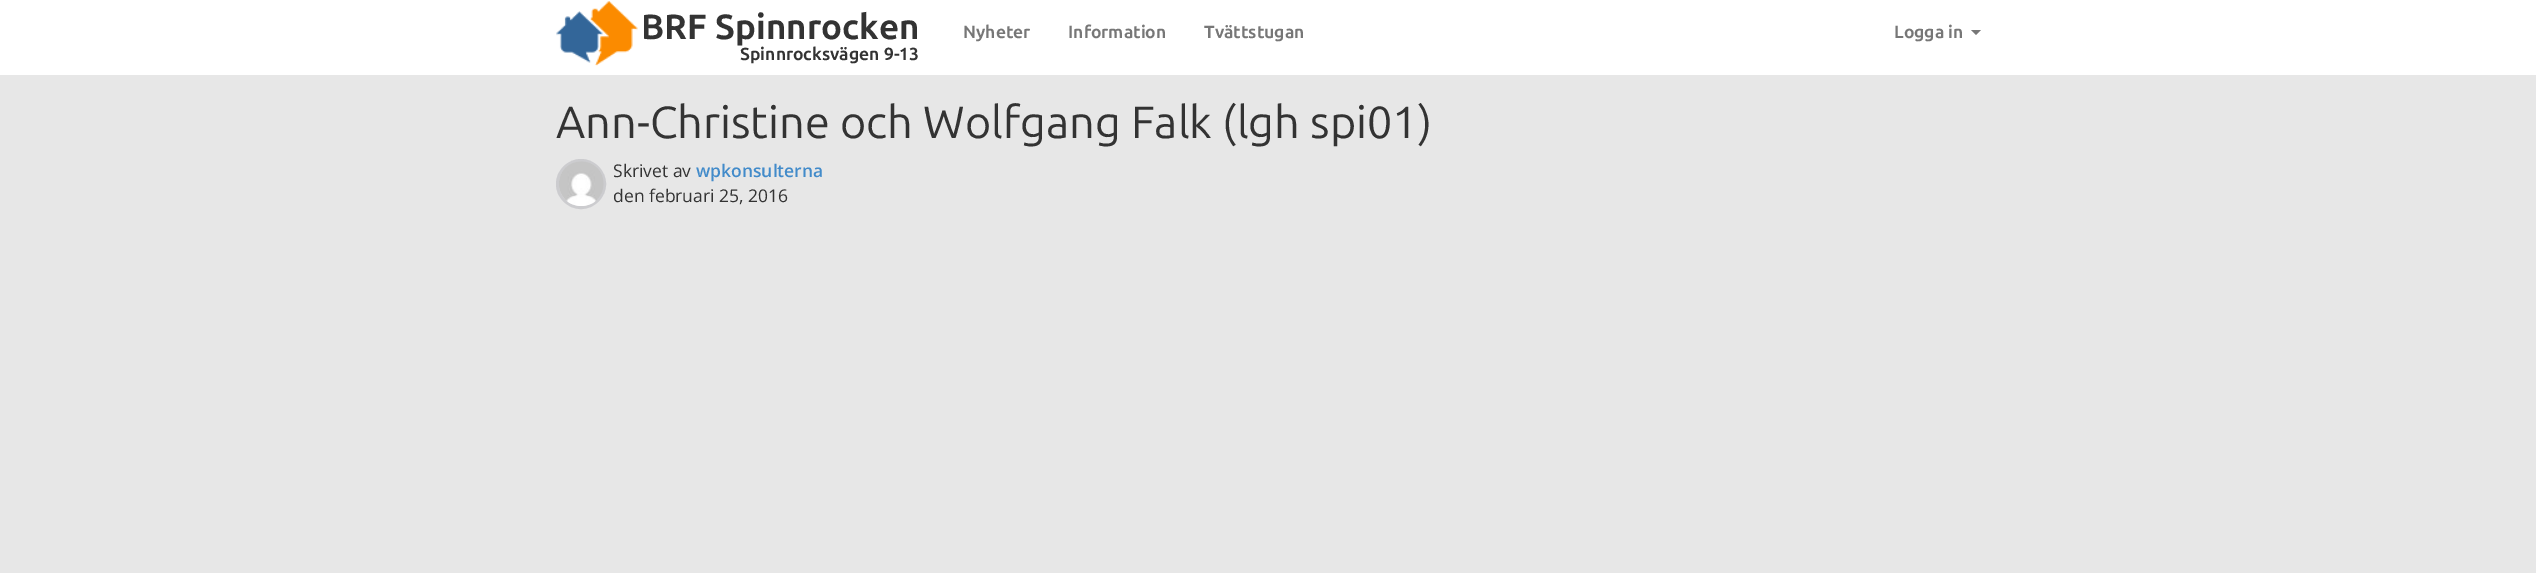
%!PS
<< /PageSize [2536 573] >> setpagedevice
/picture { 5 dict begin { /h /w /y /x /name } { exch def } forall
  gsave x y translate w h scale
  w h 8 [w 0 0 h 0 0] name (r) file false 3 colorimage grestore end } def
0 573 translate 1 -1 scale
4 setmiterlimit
0.906 setgray
0 0 2536 573 rectfill
1 setgray
0 0 2536 75 rectfill
(img1.rgb) 556 1 82 65 picture
/Ubuntu-Bold [35 0 0 -35 0 0] selectfont
0.2 setgray
641 39 moveto (BRF Spinnrocken) show
/Ubuntu-Bold [17.5 0 0 -17.5 0 0] selectfont
740 60 moveto (Spinnrocksvägen 9-13) show
0.467 setgray
963 38 moveto (Nyheter) show
1068 38 moveto (Information) show
1204 38 moveto (Tvättstugan) show
1894 38 moveto (Logga in) show
newpath 1971 30 moveto 1981 30 lineto 1976 35 lineto closepath fill
/Ubuntu-Regular [45 0 0 -45 0 0] selectfont
0.2 setgray
556 138 moveto (Ann-Christine och Wolfgang Falk \(lgh spi01\)) show
0.8 0.8 0.812 setrgbcolor
3 setlinewidth
newpath 581 184 23.5 0 360 arc closepath stroke
(img2.rgb) 559 161 45 45 picture
/OpenSans-Regular [17.5 0 0 -17.5 0 0] selectfont
0.2 setgray
613 177 moveto (Skrivet av) show
/OpenSans-SemiBold [17.5 0 0 -17.5 0 0] selectfont
0.259 0.545 0.792 setrgbcolor
696 177 moveto (wpkonsulterna) show
/OpenSans-Regular [17.5 0 0 -17.5 0 0] selectfont
0.2 setgray
613 202 moveto (den februari 25, 2016) show
showpage
